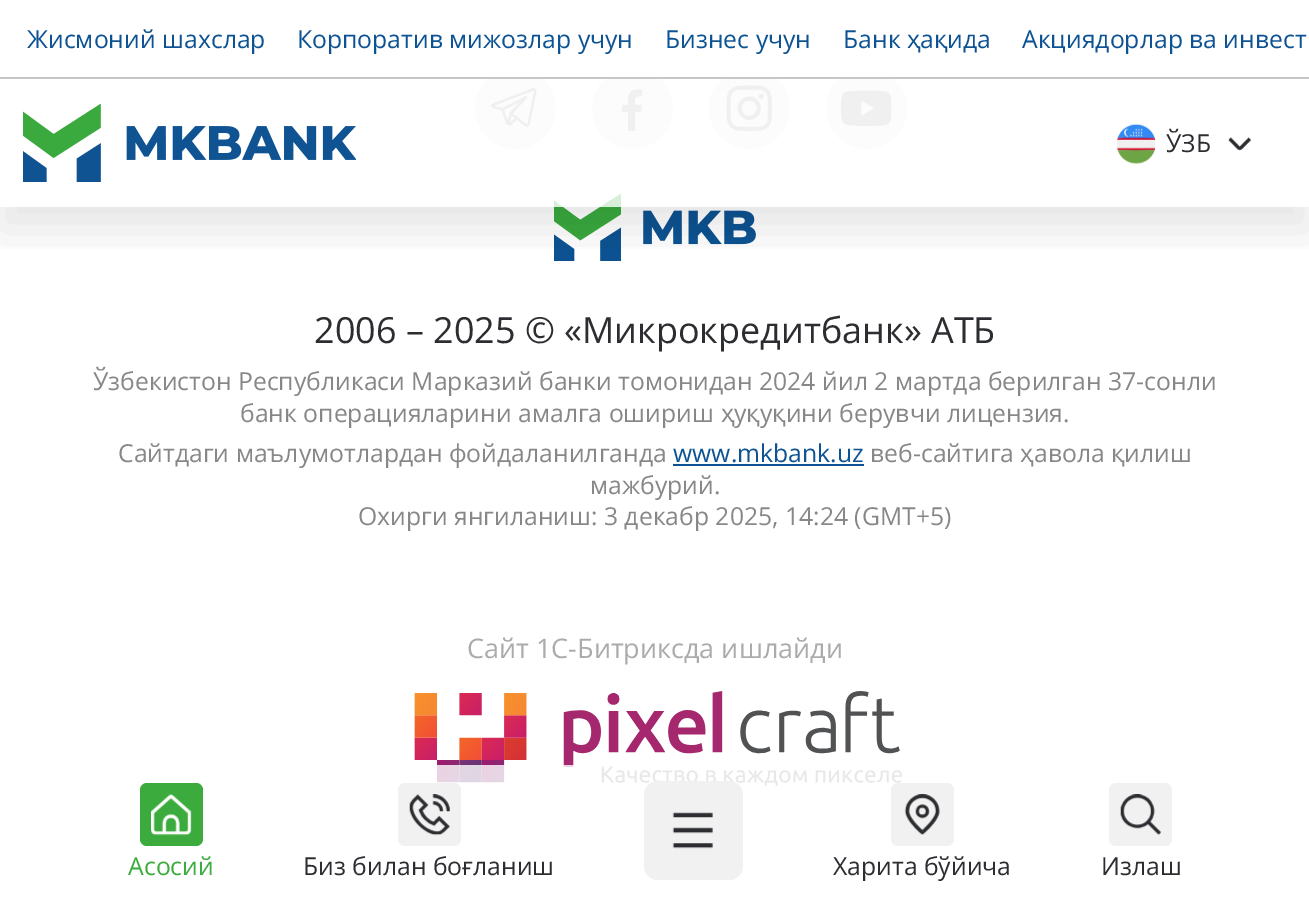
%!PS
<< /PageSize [1309 899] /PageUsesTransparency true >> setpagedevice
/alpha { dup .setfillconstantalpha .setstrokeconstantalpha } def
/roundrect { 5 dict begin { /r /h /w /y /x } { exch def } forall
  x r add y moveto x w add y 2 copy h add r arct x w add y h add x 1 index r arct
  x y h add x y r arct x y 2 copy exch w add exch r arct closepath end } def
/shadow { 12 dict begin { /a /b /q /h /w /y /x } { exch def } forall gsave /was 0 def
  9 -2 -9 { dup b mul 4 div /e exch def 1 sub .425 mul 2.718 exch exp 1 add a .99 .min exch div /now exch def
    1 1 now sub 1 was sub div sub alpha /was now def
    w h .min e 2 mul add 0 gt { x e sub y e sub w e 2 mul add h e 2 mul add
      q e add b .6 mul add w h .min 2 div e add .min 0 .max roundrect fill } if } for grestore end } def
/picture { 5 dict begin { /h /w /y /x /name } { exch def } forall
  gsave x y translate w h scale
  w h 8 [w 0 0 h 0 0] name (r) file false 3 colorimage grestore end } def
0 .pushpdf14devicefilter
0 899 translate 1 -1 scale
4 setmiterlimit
1 setgray
0 0 1309 899 rectfill
0.945 setgray
newpath 515.5 108.5 40.5 0 360 arc closepath fill
(img4.rgb) 491 88 46 39 picture
newpath 632.5 108.5 40.5 0 360 arc closepath fill
(img5.rgb) 622 89 21 42 picture
newpath 749.5 108.5 40.5 0 360 arc closepath fill
(img6.rgb) 726 85 46 46 picture
newpath 866.5 108.5 40.5 0 360 arc closepath fill
(img7.rgb) 840 90 52 36 picture
(img8.rgb) 554 194 202 67 picture
gsave
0 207 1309 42 rectclip
0 setgray
0 101 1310 129 0 22.5 0.1 shadow
grestore
1 setgray
13 68 1284 9 rectfill
/OpenSans-Regular [24.75 0 0 -24.75 0 0] selectfont
0.051 0.325 0.576 setrgbcolor
27 48 moveto (Жисмоний шахслар) show
297 48 moveto (Корпоратив мижозлар учун) show
665 48 moveto (Бизнес учун) show
843 48 moveto (Банк ҳақида) show
1022 48 moveto (Акциядорлар ва инвест) show
0.773 0.776 0.776 setrgbcolor
0 77 1309 2 rectfill
0.8 alpha
1 setgray
475 79 432 128 rectfill
1 alpha
(img1.rgb) 23 104 333 78 picture
(img2.rgb) 1117 124 39 40 picture
0.173 0.176 0.192 setrgbcolor
1166 152 moveto (ЎЗБ) show
(img3.rgb) 1228 137 23 14 picture
/OpenSans-Regular [36 0 0 -36 0 0] selectfont
314 343 moveto (2006 – 2025 © «Микрокредитбанк» АТБ) show
/OpenSans-Regular [24.75 0 0 -24.75 0 0] selectfont
0.529 setgray
93 390 moveto (Ўзбекистон Республикаси Марказий банки томонидан 2024 йил 2 мартда берилган 37-сонли) show
240 422 moveto (банк операцияларини амалга ошириш ҳуқуқини берувчи лицензия.) show
118 462 moveto (Сайтдаги маълумотлардан фойдаланилганда) show
0.051 0.325 0.576 setrgbcolor
673 462 moveto (www.mkbank.uz) show
673 464 191 2 rectfill
0.529 setgray
870 462 moveto (веб-сайтига ҳавола қилиш) show
590 494 moveto (мажбурий.) show
358 525 moveto (Охирги янгиланиш: 3 декабр 2025, 14:24 \(GMT+5\)) show
/OpenSans-Regular [27 0 0 -27 0 0] selectfont
0.667 0.671 0.678 setrgbcolor
467 658 moveto (Сайт 1C-Битриксда ишлайди) show
(img9.rgb) 414 691 488 95 picture
0.8 alpha
1 setgray
437 765 465 21 rectfill
1 alpha
0.235 0.671 0.239 setrgbcolor
140 783 63 63 7 roundrect fill
(img10.rgb) 151 794 41 42 picture
/OpenSans-Regular [24.75 0 0 -24.75 0 0] selectfont
128 875 moveto (Асосий) show
0.945 setgray
398 783 63 63 7 roundrect fill
(img11.rgb) 409 794 41 42 picture
0.173 0.176 0.192 setrgbcolor
303 875 moveto (Биз билан боғланиш) show
0.945 setgray
644 781 99 99 14 roundrect fill
(img12.rgb) 672 812 41 37 picture
891 783 63 63 7 roundrect fill
(img13.rgb) 904 794 36 41 picture
0.173 0.176 0.192 setrgbcolor
833 875 moveto (Харита бўйича) show
0.945 setgray
1109 783 63 63 7 roundrect fill
(img14.rgb) 1120 794 41 41 picture
0.173 0.176 0.192 setrgbcolor
1101 875 moveto (Излаш) show
.poppdf14devicefilter showpage
